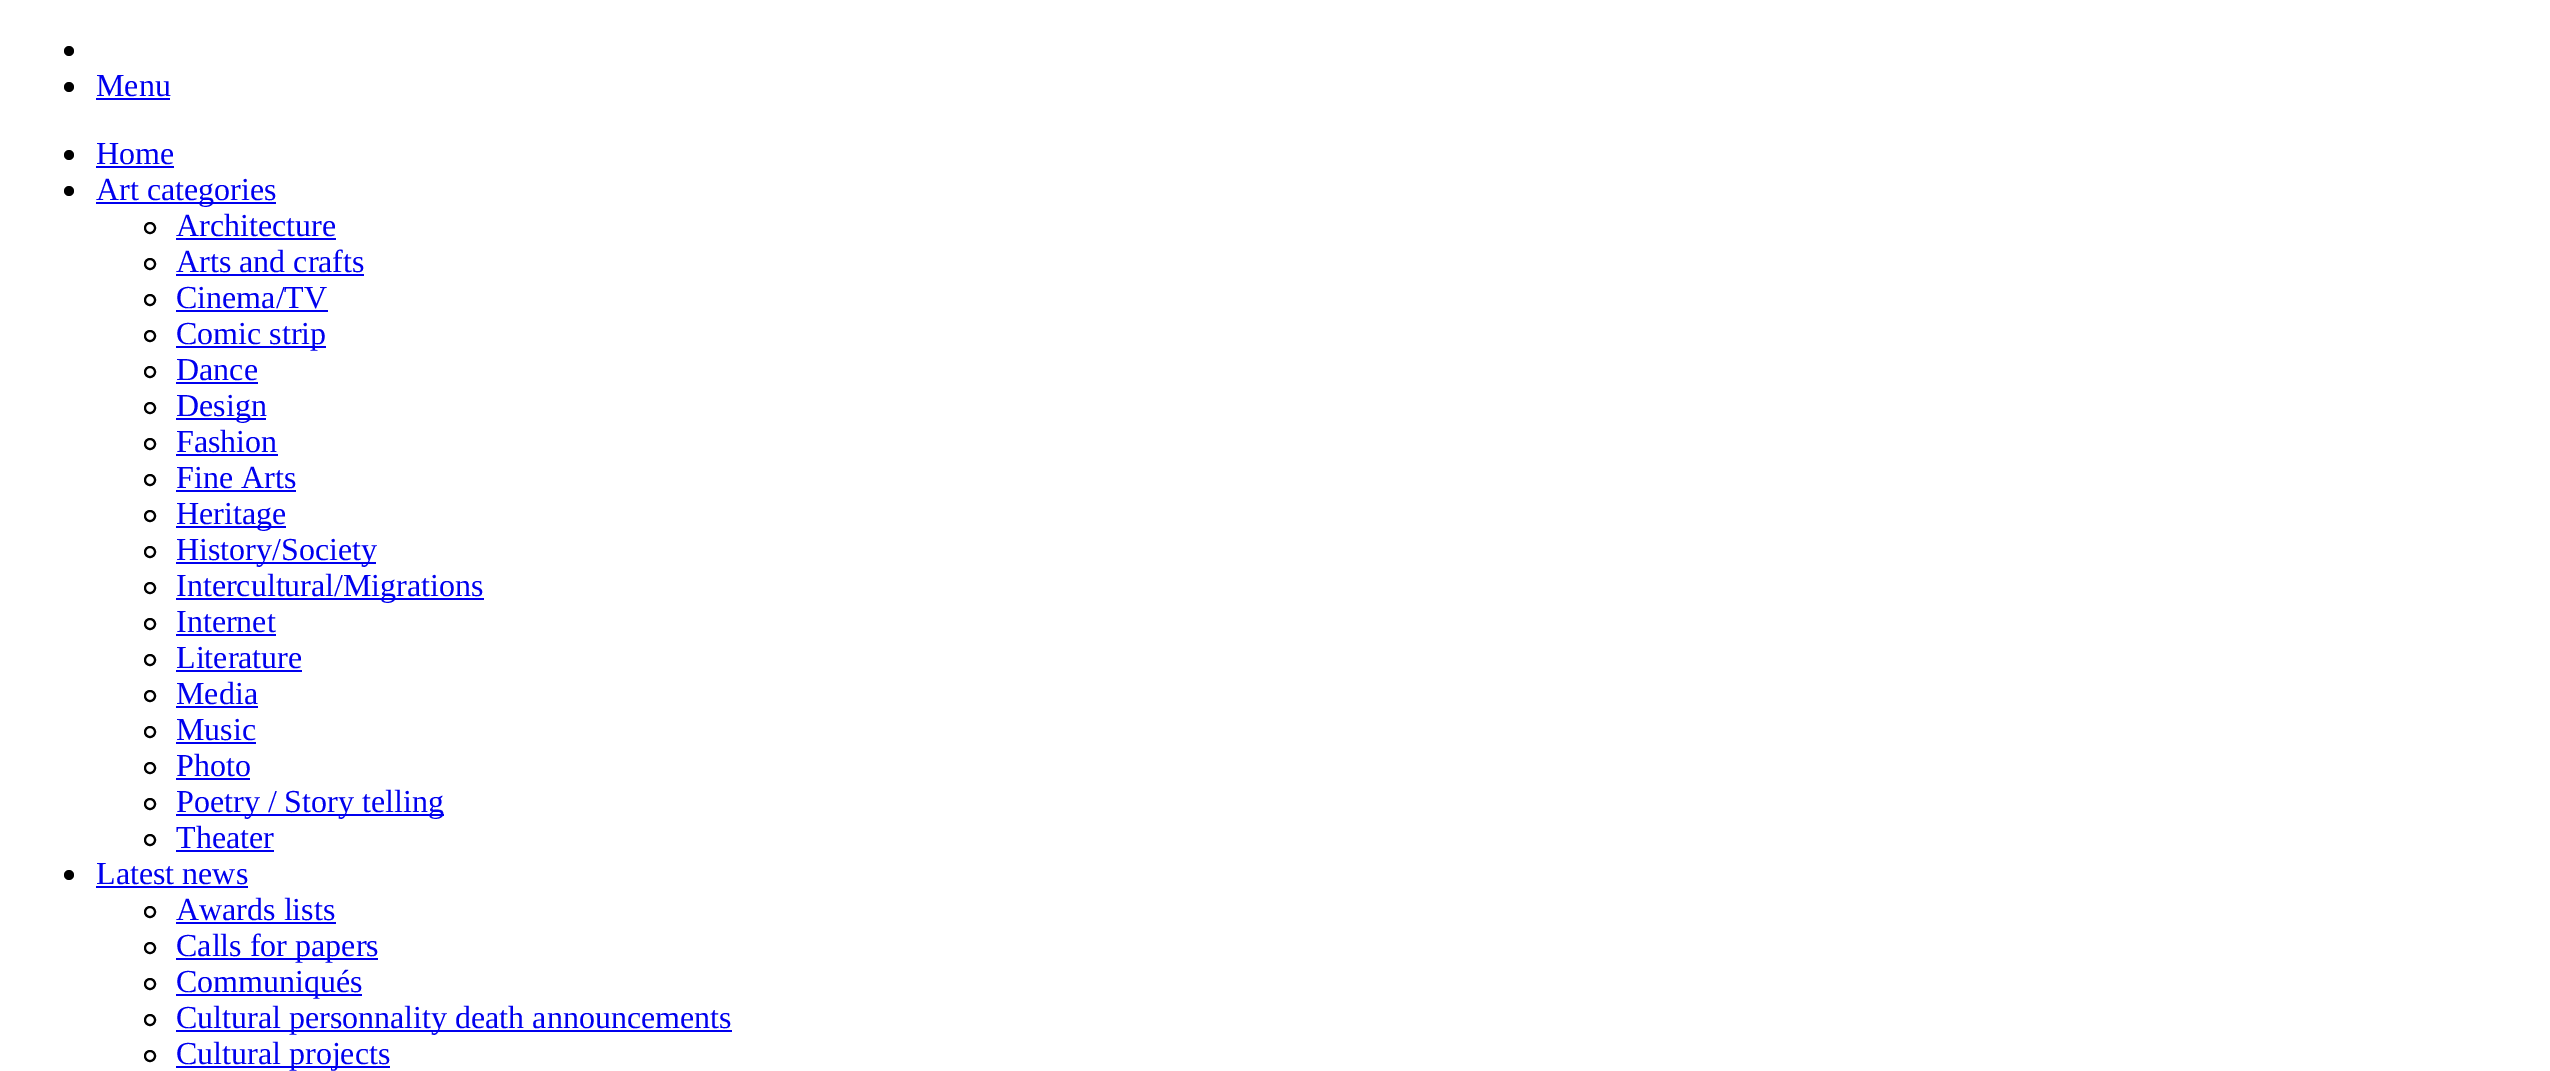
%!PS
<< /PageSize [2550 1071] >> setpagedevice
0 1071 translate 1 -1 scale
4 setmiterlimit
1 setgray
0 0 2550 1071 rectfill
0 setgray
newpath 69 51 5 0 360 arc closepath fill
newpath 69 87 5 0 360 arc closepath fill
/LiberationSerif-Regular [32 0 0 -32 0 0] selectfont
0 0 0.933 setrgbcolor
96 96 moveto (Menu) show
96 98 74 2 rectfill
0 setgray
newpath 69 155 5 0 360 arc closepath fill
0 0 0.933 setrgbcolor
96 164 moveto (Home) show
96 166 78 2 rectfill
0 setgray
newpath 69 191 5 0 360 arc closepath fill
0 0 0.933 setrgbcolor
96 202 180 2 rectfill
96 200 moveto (Art categories) show
0 setgray
2 setlinewidth
newpath 150 228 5 0 360 arc closepath stroke
0 0 0.933 setrgbcolor
176 236 moveto (Architecture) show
176 238 160 2 rectfill
0 setgray
newpath 150 264 5 0 360 arc closepath stroke
0 0 0.933 setrgbcolor
176 272 moveto (Arts and crafts) show
176 274 188 2 rectfill
0 setgray
newpath 150 300 5 0 360 arc closepath stroke
0 0 0.933 setrgbcolor
176 308 moveto (Cinema/TV) show
176 310 152 2 rectfill
0 setgray
newpath 150 336 5 0 360 arc closepath stroke
0 0 0.933 setrgbcolor
176 346 150 2 rectfill
176 344 moveto (Comic strip) show
0 setgray
newpath 150 372 5 0 360 arc closepath stroke
0 0 0.933 setrgbcolor
176 380 moveto (Dance) show
176 382 82 2 rectfill
0 setgray
newpath 150 408 5 0 360 arc closepath stroke
0 0 0.933 setrgbcolor
176 418 90 2 rectfill
176 416 moveto (Design) show
0 setgray
newpath 150 444 5 0 360 arc closepath stroke
0 0 0.933 setrgbcolor
176 452 moveto (Fashion) show
176 454 102 2 rectfill
0 setgray
newpath 150 480 5 0 360 arc closepath stroke
0 0 0.933 setrgbcolor
176 488 moveto (Fine Arts) show
176 490 120 2 rectfill
0 setgray
newpath 150 516 5 0 360 arc closepath stroke
0 0 0.933 setrgbcolor
176 526 110 2 rectfill
176 524 moveto (Heritage) show
0 setgray
newpath 150 552 5 0 360 arc closepath stroke
0 0 0.933 setrgbcolor
176 562 200 2 rectfill
176 560 moveto (History/Society) show
0 setgray
newpath 150 588 5 0 360 arc closepath stroke
0 0 0.933 setrgbcolor
176 598 308 2 rectfill
176 596 moveto (Intercultural/Migrations) show
0 setgray
newpath 150 624 5 0 360 arc closepath stroke
0 0 0.933 setrgbcolor
176 632 moveto (Internet) show
176 634 100 2 rectfill
0 setgray
newpath 150 660 5 0 360 arc closepath stroke
0 0 0.933 setrgbcolor
176 668 moveto (Literature) show
176 670 126 2 rectfill
0 setgray
newpath 150 696 5 0 360 arc closepath stroke
0 0 0.933 setrgbcolor
176 704 moveto (Media) show
176 706 82 2 rectfill
0 setgray
newpath 150 732 5 0 360 arc closepath stroke
0 0 0.933 setrgbcolor
176 740 moveto (Music) show
176 742 80 2 rectfill
0 setgray
newpath 150 768 5 0 360 arc closepath stroke
0 0 0.933 setrgbcolor
176 776 moveto (Photo) show
176 778 74 2 rectfill
0 setgray
newpath 150 804 5 0 360 arc closepath stroke
0 0 0.933 setrgbcolor
176 814 268 2 rectfill
176 812 moveto (Poetry / Story telling) show
0 setgray
newpath 150 840 5 0 360 arc closepath stroke
0 0 0.933 setrgbcolor
176 848 moveto (Theater) show
176 850 98 2 rectfill
0 setgray
newpath 69 875 5 0 360 arc closepath fill
0 0 0.933 setrgbcolor
96 884 moveto (Latest news) show
96 886 152 2 rectfill
0 setgray
newpath 150 912 5 0 360 arc closepath stroke
0 0 0.933 setrgbcolor
176 920 moveto (Awards lists) show
176 922 160 2 rectfill
0 setgray
newpath 150 948 5 0 360 arc closepath stroke
0 0 0.933 setrgbcolor
176 958 202 2 rectfill
176 956 moveto (Calls for papers) show
0 setgray
newpath 150 984 5 0 360 arc closepath stroke
0 0 0.933 setrgbcolor
176 994 186 2 rectfill
176 992 moveto (Communiqués) show
0 setgray
newpath 150 1020 5 0 360 arc closepath stroke
0 0 0.933 setrgbcolor
176 1030 556 2 rectfill
176 1028 moveto (Cultural personnality death announcements) show
0 setgray
newpath 150 1056 5 0 360 arc closepath stroke
0 0 0.933 setrgbcolor
176 1066 214 2 rectfill
176 1064 moveto (Cultural projects) show
showpage
